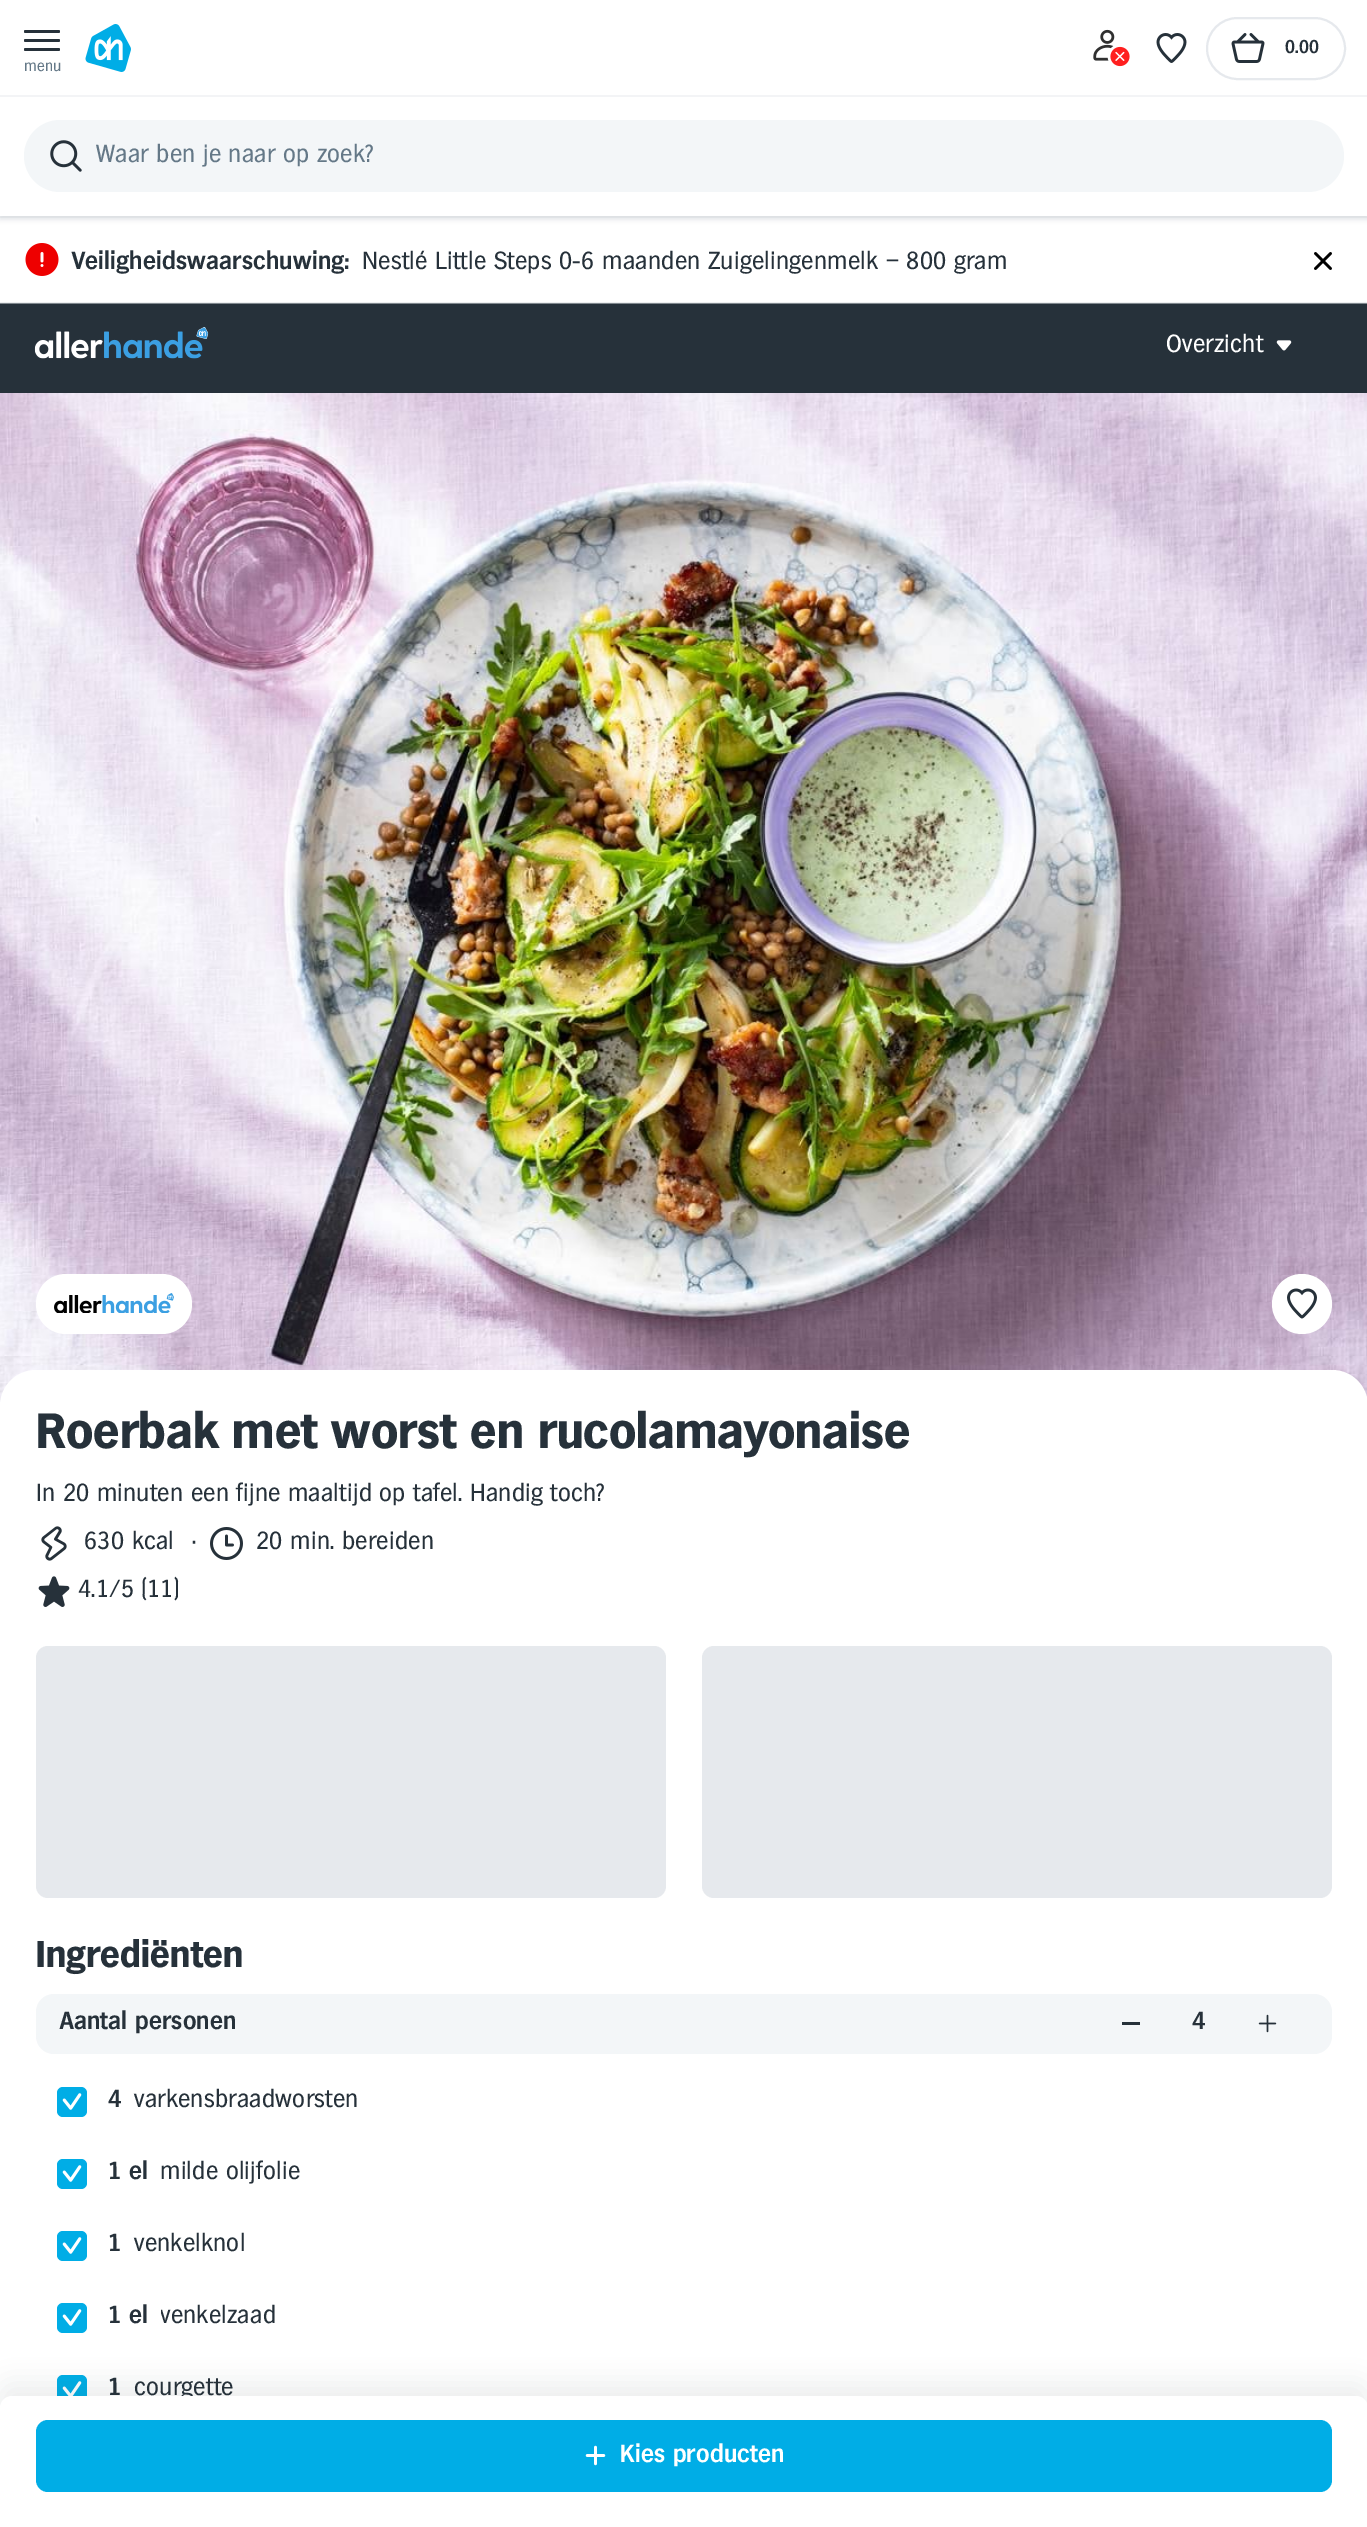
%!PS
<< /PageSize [1367 2527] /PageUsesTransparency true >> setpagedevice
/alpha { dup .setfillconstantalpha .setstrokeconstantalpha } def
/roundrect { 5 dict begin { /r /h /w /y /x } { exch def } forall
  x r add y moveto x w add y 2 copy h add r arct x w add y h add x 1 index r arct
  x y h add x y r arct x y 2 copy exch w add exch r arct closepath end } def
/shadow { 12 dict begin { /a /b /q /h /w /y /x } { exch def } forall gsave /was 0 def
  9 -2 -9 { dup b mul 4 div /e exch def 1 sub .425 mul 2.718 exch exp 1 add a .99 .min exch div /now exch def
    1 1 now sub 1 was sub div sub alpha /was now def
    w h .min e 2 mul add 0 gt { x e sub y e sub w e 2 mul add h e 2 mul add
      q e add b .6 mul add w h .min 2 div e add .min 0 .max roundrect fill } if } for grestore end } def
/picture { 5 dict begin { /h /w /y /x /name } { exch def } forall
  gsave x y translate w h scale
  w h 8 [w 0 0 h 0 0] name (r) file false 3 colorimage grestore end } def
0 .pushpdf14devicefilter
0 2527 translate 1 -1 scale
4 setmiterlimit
1 setgray
0 0 1367 2527 rectfill
0.929 0.937 0.941 setrgbcolor
0 302 1367 1 rectfill
(img1.rgb) 85 24 46 48 picture
(img2.rgb) 1093 29 37 38 picture
(img3.rgb) 1156 33 31 30 picture
0.902 0.914 0.929 setrgbcolor
2 setlinewidth
1207 18 138 61 30.5 roundrect stroke
(img4.rgb) 1231 33 34 30 picture
/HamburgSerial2-Bold [18 0 0 -18 0 0] selectfont
0.149 0.192 0.227 setrgbcolor
1285 53 moveto 0.3 0 (0.00) ashow
24 30 36 3 1.5 roundrect fill
24 39 36 3 1.5 roundrect fill
24 48 36 3 1.5 roundrect fill
/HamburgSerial-Regular [15 0 0 -15 0 0] selectfont
0.392 0.471 0.529 setrgbcolor
24 71 moveto 0.3 0 (menu) ashow
gsave
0 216 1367 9 rectclip
0.855 0.871 0.882 setrgbcolor
0 99 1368 120 0 3 1 shadow
grestore
0.953 0.957 0.965 setrgbcolor
0 95 1367 2 rectfill
0.953 0.965 0.973 setrgbcolor
24 120 1320 72 36 roundrect fill
(img5.rgb) 50 140 32 32 picture
/HamburgSerial-Regular [24 0 0 -24 0 0] selectfont
0.392 0.471 0.529 setrgbcolor
96 162 moveto 0.3 0 (Waar ben je naar op zoek?) ashow
0.5 alpha
0.855 0.871 0.882 setrgbcolor
0 216 1367 2 rectfill
1 alpha
(img6.rgb) 25 243 34 33 picture
/HamburgSerial2-Bold [24 0 0 -24 0 0] selectfont
0.149 0.192 0.227 setrgbcolor
72 269 moveto 0.3 0 (Veiligheidswaarschuwing:) ashow
/HamburgSerial-Regular [24 0 0 -24 0 0] selectfont
362 269 moveto 0.3 0 (Nestlé Little Steps 0-6 maanden Zuigelingenmelk – 800 gram) ashow
(img7.rgb) 1314 252 18 18 picture
0 304 1367 89 rectfill
0.502 0.533 0.557 setrgbcolor
0 303 1367 1 rectfill
(img8.rgb) 34 327 175 32 picture
1 setgray
1166 352 moveto 0.3 0 (Overzicht) ashow
(img9.rgb) 1276 340 16 11 picture
(img10.rgb) 0 393 1367 1013 picture
36 1274 156 60 30 roundrect fill
(img11.rgb) 54 1293 120 20 picture
newpath 1302 1304 30 0 360 arc closepath fill
(img12.rgb) 1287 1288 30 31 picture
0 1370 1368 240 36 roundrect fill
/HamburgSerial-Bold [48 0 0 -48 0 0] selectfont
0.149 0.192 0.227 setrgbcolor
36 1448 moveto 0.1 0 (Roerbak met worst en rucolamayonaise) ashow
/HamburgSerial-Regular [24 0 0 -24 0 0] selectfont
36 1501 moveto 0.3 0 (In 20 minuten een fijne maaltijd op tafel. Handig toch?) ashow
(img13.rgb) 41 1526 26 35 picture
84 1549 moveto 0.3 0 (630 kcal) ashow
192 1549 moveto (•) show
(img14.rgb) 210 1527 33 33 picture
256 1549 moveto 0.3 0 (20 min. bereiden) ashow
(img15.rgb) 38 1576 32 31 picture
78 1597 moveto 0.3 0 (4.1/5) ashow
141 1597 moveto 0.3 0 (\(11\)) ashow
0 0.678 0.902 setrgbcolor
57 2375 30 30 6 roundrect fill
(img19.rgb) 62 2381 20 15 picture
0.149 0.192 0.227 setrgbcolor
0 2384 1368 132 12 12 0.08 shadow
134 2395 moveto 0.3 0 (courgette) ashow
1 setgray
newpath 12 2396 moveto 1356 2396 lineto 1362.5 2396 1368 2401.5 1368 2408 curveto 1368 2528 lineto 0 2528 lineto 0 2408 lineto 0 2401.5 5.5 2396 12 2396 curveto closepath fill
0 0.678 0.902 setrgbcolor
36 2420 1296 72 12 roundrect fill
(img16.rgb) 585 2445 21 21 picture
/HamburgSerial2-Bold [24 0 0 -24 0 0] selectfont
1 setgray
620 2462 moveto 0.3 0 (Kies producten) ashow
0.902 0.914 0.929 setrgbcolor
36 1646 630 252 12 roundrect fill
702 1646 630 252 12 roundrect fill
/HamburgSerial-Bold [36 0 0 -36 0 0] selectfont
0.149 0.192 0.227 setrgbcolor
36 1967 moveto 0.3 0 (Ingrediënten) ashow
0.953 0.965 0.973 setrgbcolor
36 1994 1296 60 18 roundrect fill
/HamburgSerial2-Bold [24 0 0 -24 0 0] selectfont
0.149 0.192 0.227 setrgbcolor
60 2029 moveto 0.3 0 (Aantal personen) ashow
1122 2022 18 3 rectfill
1192 2029 moveto 0.3 0 (4) ashow
(img17.rgb) 1258 2014 19 19 picture
0 0.678 0.902 setrgbcolor
57 2087 30 30 6 roundrect fill
(img18.rgb) 62 2093 20 17 picture
0.149 0.192 0.227 setrgbcolor
108 2107 moveto 0.3 0 (4) ashow
/HamburgSerial-Regular [24 0 0 -24 0 0] selectfont
134 2107 moveto 0.3 0 (varkensbraadworsten) ashow
0 0.678 0.902 setrgbcolor
57 2159 30 30 6 roundrect fill
(img18.rgb) 62 2165 20 17 picture
/HamburgSerial2-Bold [24 0 0 -24 0 0] selectfont
0.149 0.192 0.227 setrgbcolor
108 2179 moveto 0.3 0 (1 el) ashow
/HamburgSerial-Regular [24 0 0 -24 0 0] selectfont
160 2179 moveto 0.3 0 (milde olijfolie) ashow
0 0.678 0.902 setrgbcolor
57 2231 30 30 6 roundrect fill
(img18.rgb) 62 2237 20 17 picture
/HamburgSerial2-Bold [24 0 0 -24 0 0] selectfont
0.149 0.192 0.227 setrgbcolor
108 2251 moveto 0.3 0 (1) ashow
/HamburgSerial-Regular [24 0 0 -24 0 0] selectfont
134 2251 moveto 0.3 0 (venkelknol) ashow
0 0.678 0.902 setrgbcolor
57 2303 30 30 6 roundrect fill
(img18.rgb) 62 2309 20 17 picture
/HamburgSerial2-Bold [24 0 0 -24 0 0] selectfont
0.149 0.192 0.227 setrgbcolor
108 2323 moveto 0.3 0 (1 el) ashow
gsave
161 2300 115 36 rectclip
/HamburgSerial-Regular [24 0 0 -24 0 0] selectfont
160 2323 moveto 0.3 0 (venkelzaad) ashow
grestore
108 2395 moveto 0.3 0 (1) ashow
.poppdf14devicefilter showpage
